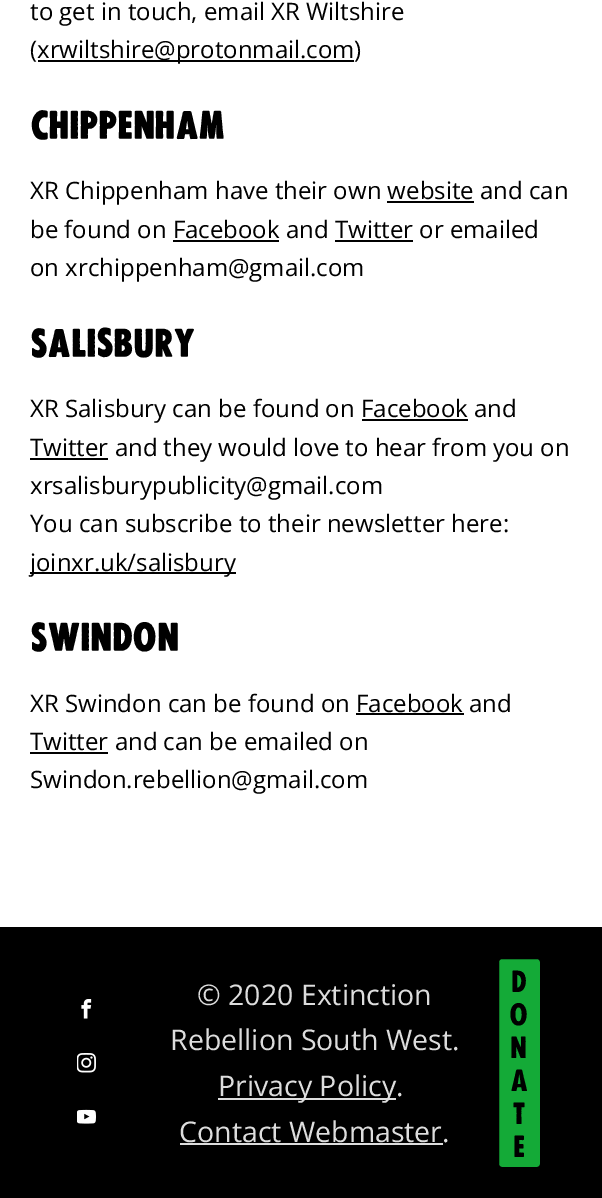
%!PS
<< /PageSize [602 1198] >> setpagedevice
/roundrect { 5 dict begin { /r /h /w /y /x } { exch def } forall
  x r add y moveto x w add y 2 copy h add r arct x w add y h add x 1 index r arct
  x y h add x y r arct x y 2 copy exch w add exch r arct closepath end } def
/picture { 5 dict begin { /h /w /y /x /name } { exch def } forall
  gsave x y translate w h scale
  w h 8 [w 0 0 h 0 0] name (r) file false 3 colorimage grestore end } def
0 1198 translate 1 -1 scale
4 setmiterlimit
1 setgray
0 0 602 1198 rectfill
/OpenSans-Regular [24 0 0 -24 0 0] selectfont
0 setgray
30 20 moveto (to get in touch, email XR Wiltshire) show
30 58 moveto (\() show
38 60 316 2 rectfill
37 58 moveto (xrwiltshire@protonmail.com\)) show
/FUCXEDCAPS-Bold [36 0 0 -36 0 0] selectfont
30 139 moveto (Chippenham) show
/OpenSans-Regular [24 0 0 -24 0 0] selectfont
30 199 moveto (XR Chippenham have their own website and can) show
387 201 87 2 rectfill
30 238 moveto (be found on Facebook and Twitter or emailed) show
173 240 106 2 rectfill
335 240 78 2 rectfill
30 276 moveto (on xrchippenham@gmail.com) show
/FUCXEDCAPS-Bold [36 0 0 -36 0 0] selectfont
30 357 moveto (Salisbury) show
/OpenSans-Regular [24 0 0 -24 0 0] selectfont
30 417 moveto (XR Salisbury can be found on Facebook and) show
362 419 106 2 rectfill
30 458 78 2 rectfill
30 456 moveto (Twitter and they would love to hear from you on) show
30 494 moveto (xrsalisburypublicity@gmail.com) show
30 532 moveto (You can subscribe to their newsletter here:) show
30 572 206 2 rectfill
30 571 moveto (joinxr.uk/salisbury) show
/FUCXEDCAPS-Bold [36 0 0 -36 0 0] selectfont
30 651 moveto (Swindon) show
/OpenSans-Regular [24 0 0 -24 0 0] selectfont
30 712 moveto (XR Swindon can be found on Facebook and) show
356 713 108 2 rectfill
30 750 moveto (Twitter and can be emailed on) show
30 752 78 2 rectfill
30 788 moveto (Swindon.rebellion@gmail.com) show
0 927 602 271 rectfill
(img1.rgb) 81 999 11 20 picture
(img2.rgb) 77 1053 19 20 picture
(img3.rgb) 77 1109 19 15 picture
/OpenSans-Regular [28.5 0 0 -28.5 0 0] selectfont
0.867 setgray
197 1005 moveto (© 2020 Extinction) show
170 1050 moveto (Rebellion South West.) show
218 1098 178 2 rectfill
218 1096 moveto (Privacy Policy.) show
179 1142 moveto (Contact Webmaster.) show
180 1143 263 2 rectfill
0.078 0.667 0.216 setrgbcolor
498 958 43 210 4 roundrect gsave fill grestore
0 setgray
2 setlinewidth
stroke
/FUCXEDCAPS-Regular [28.5 0 0 -28.5 0 0] selectfont
511 992 moveto (D) show
509 1025 moveto (O) show
510 1058 moveto (N) show
510 1091 moveto (A) show
512 1124 moveto (T) show
513 1157 moveto (E) show
showpage
